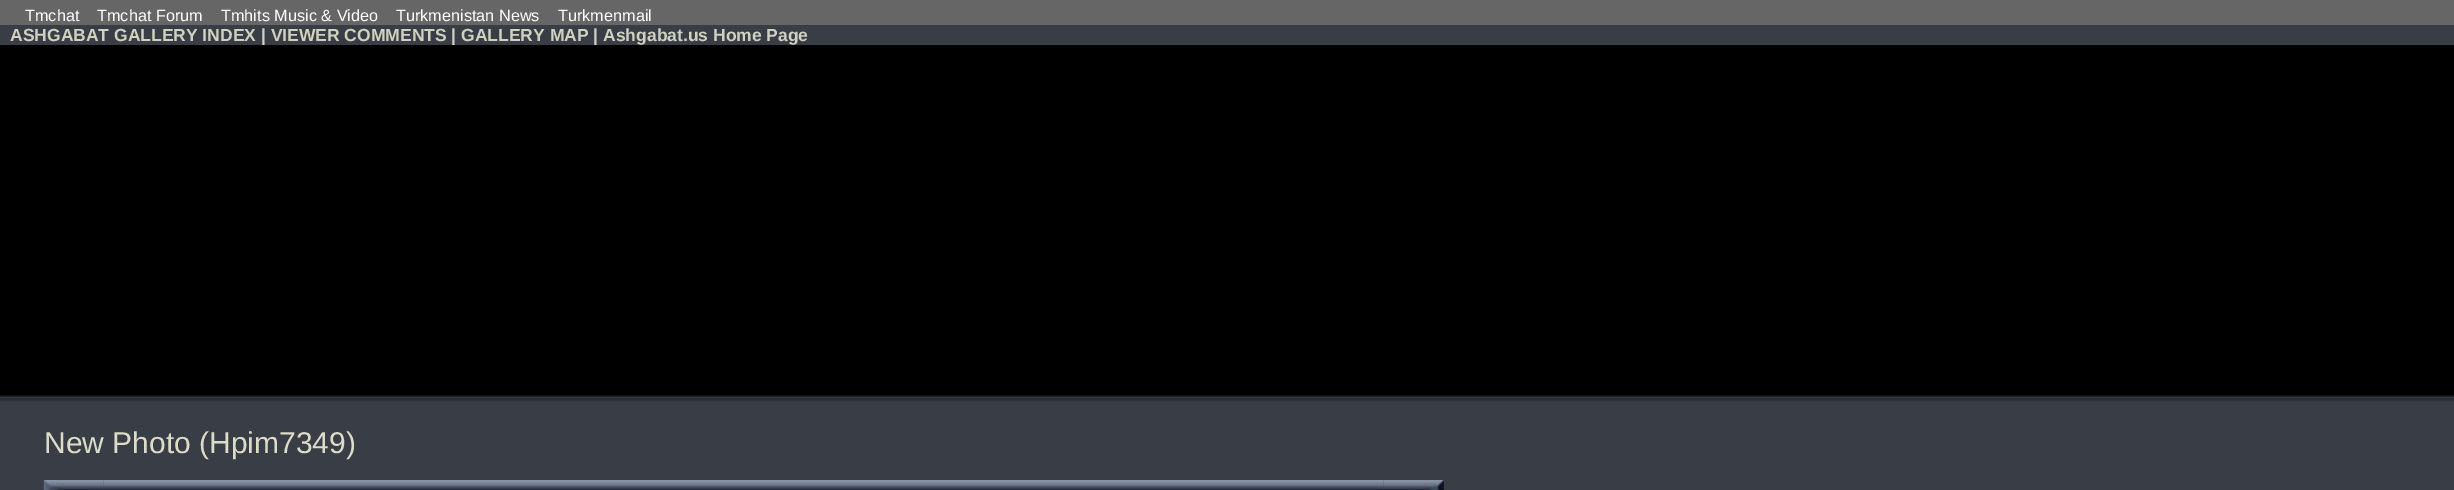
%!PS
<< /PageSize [2454 490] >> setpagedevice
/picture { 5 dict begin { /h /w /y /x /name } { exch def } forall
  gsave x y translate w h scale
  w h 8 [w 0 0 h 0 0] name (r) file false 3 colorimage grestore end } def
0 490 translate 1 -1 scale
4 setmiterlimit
0.22 0.239 0.275 setrgbcolor
0 0 2454 490 rectfill
0.4 setgray
0 0 2454 25 rectfill
/LiberationSans-Regular [16.25 0 0 -16.25 0 0] selectfont
1 setgray
25 21 moveto (Tmchat) show
97 21 moveto (Tmchat Forum) show
221 21 moveto (Tmhits Music & Video) show
396 21 moveto (Turkmenistan News) show
558 21 moveto (Turkmenmail) show
/LiberationSans-Bold [17.5 0 0 -17.5 0 0] selectfont
0.82 0.82 0.753 setrgbcolor
10 41 moveto (ASHGABAT GALLERY INDEX | VIEWER COMMENTS | GALLERY MAP | Ashgabat.us Home Page) show
0 setgray
0 45 2454 350 rectfill
0.063 0.071 0.082 setrgbcolor
0 395 2454 1 rectfill
0.11 0.118 0.137 setrgbcolor
0 396 2454 1 rectfill
0.153 0.165 0.192 setrgbcolor
0 398 2454 1 rectfill
0.173 0.188 0.22 setrgbcolor
0 399 2454 1 rectfill
0.196 0.212 0.247 setrgbcolor
0 400 2454 1 rectfill
0.204 0.224 0.255 setrgbcolor
0 401 2454 1 rectfill
0.212 0.231 0.263 setrgbcolor
0 403 2454 1 rectfill
/LiberationSans-Regular [30 0 0 -30 0 0] selectfont
0.867 0.863 0.788 setrgbcolor
44 453 moveto (New Photo \(Hpim7349\)) show
(img1.rgb) 43 480 61 10 picture
(img2.rgb) 103 480 1281 10 picture
(img3.rgb) 1383 480 61 10 picture
showpage
